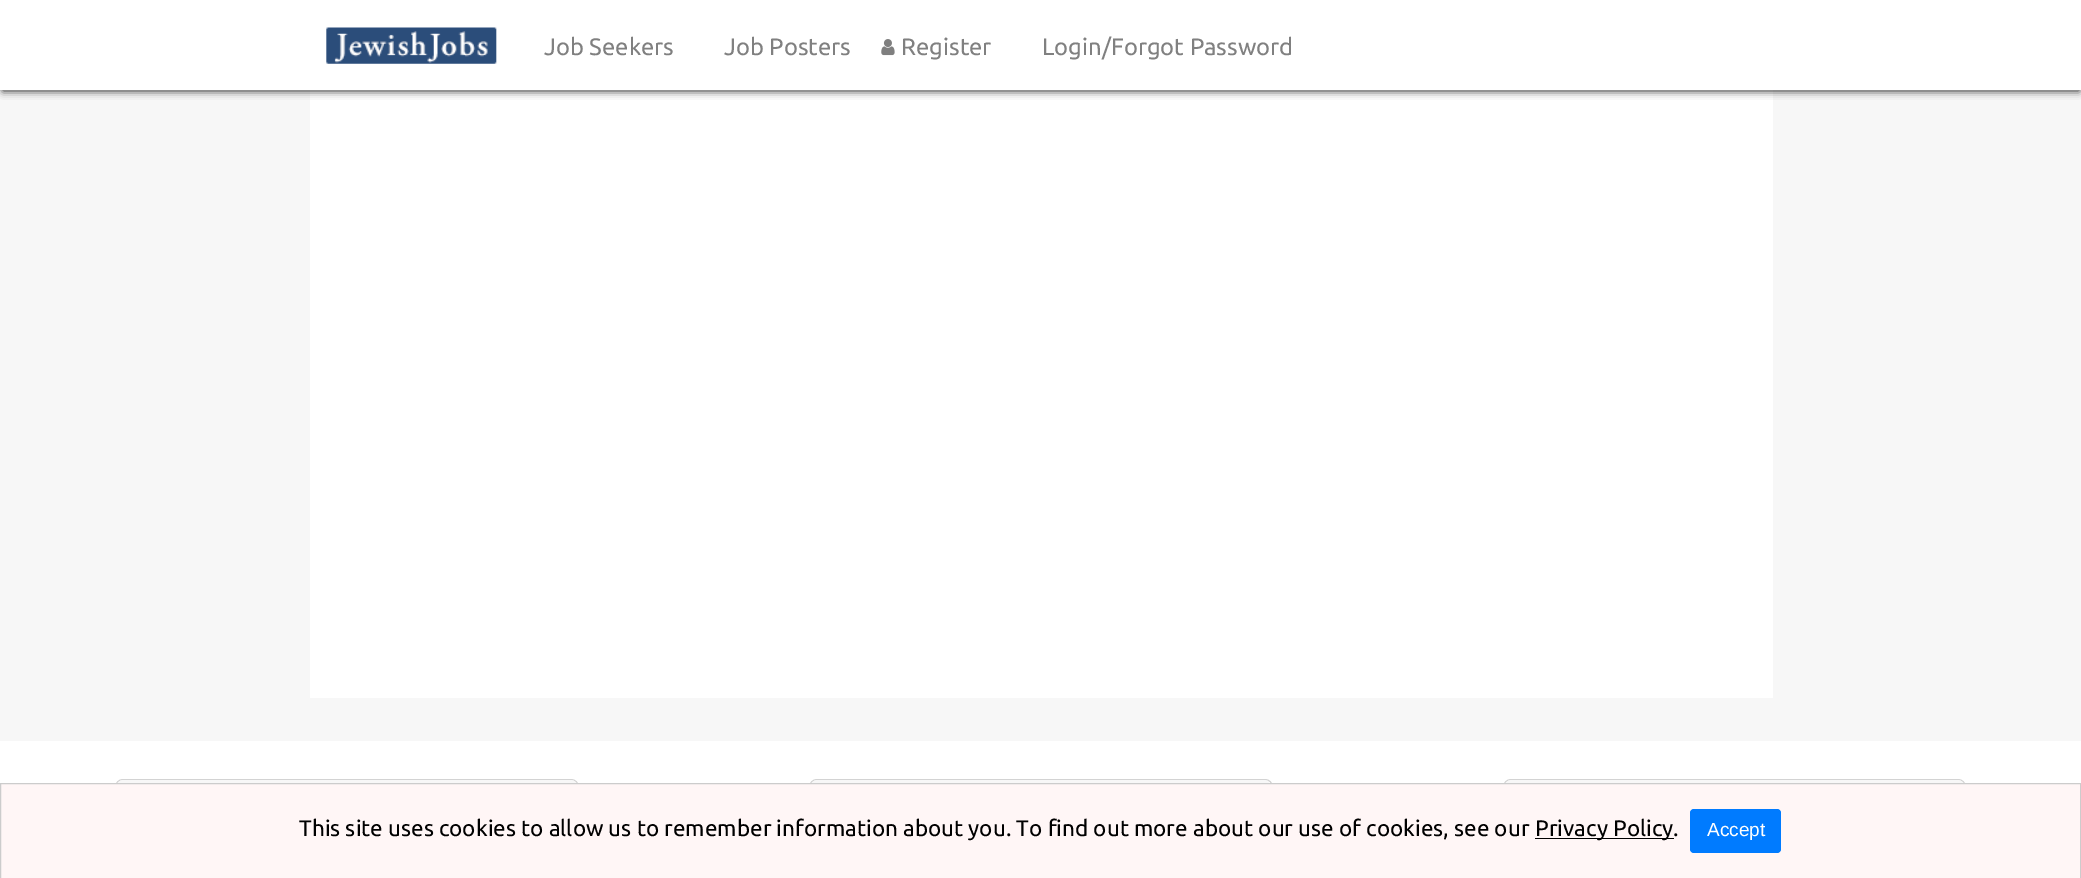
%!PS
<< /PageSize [2081 878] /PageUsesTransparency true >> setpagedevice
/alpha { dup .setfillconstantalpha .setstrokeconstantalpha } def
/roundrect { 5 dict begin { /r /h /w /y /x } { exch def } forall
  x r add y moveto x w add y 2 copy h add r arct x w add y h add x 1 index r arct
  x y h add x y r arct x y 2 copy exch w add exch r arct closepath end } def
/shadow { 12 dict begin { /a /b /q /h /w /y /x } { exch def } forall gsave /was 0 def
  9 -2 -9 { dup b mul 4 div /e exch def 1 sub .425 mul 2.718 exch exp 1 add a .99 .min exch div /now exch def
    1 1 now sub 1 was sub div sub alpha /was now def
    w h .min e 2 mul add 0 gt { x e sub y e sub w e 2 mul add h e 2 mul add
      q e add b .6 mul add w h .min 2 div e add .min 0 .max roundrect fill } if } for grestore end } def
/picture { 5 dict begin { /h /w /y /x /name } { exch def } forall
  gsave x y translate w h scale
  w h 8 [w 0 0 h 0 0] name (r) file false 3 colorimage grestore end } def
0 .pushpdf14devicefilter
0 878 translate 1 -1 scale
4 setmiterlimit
0.969 setgray
0 0 2081 878 rectfill
1 setgray
310 90 1463 608 rectfill
0.133 setgray
3 6 2076 85 0 4 1 shadow
1 setgray
0 0 2081 90 rectfill
(img1.rgb) 326 27 171 37 picture
/Ubuntu-Regular [23.75 0 0 -23.75 0 0] selectfont
0.502 setgray
544 55 moveto (Job Seekers) show
724 55 moveto (Job Posters) show
(img2.rgb) 881 39 14 17 picture
901 55 moveto (Register) show
1042 55 moveto (Login/Forgot Password) show
1 setgray
0 741 2081 42 rectfill
0.827 setgray
115.5 779.5 463 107 7.5 roundrect stroke
0.969 setgray
newpath 124 780 moveto 570 780 lineto 574.5 780 578 783.5 578 788 curveto 578 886 lineto 116 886 lineto 116 788 lineto 116 783.5 119.5 780 124 780 curveto closepath fill
0.827 setgray
809.5 779.5 463 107 7.5 roundrect stroke
0.969 setgray
newpath 818 780 moveto 1263 780 lineto 1267.5 780 1271 783.5 1271 788 curveto 1271 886 lineto 810 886 lineto 810 788 lineto 810 783.5 813.5 780 818 780 curveto closepath fill
0.827 setgray
1503.5 779.5 462 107 7.5 roundrect stroke
0.969 setgray
newpath 1512 780 moveto 1957 780 lineto 1961.5 780 1965 783.5 1965 788 curveto 1965 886 lineto 1504 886 lineto 1504 788 lineto 1504 783.5 1507.5 780 1512 780 curveto closepath fill
1 0.965 0.965 setrgbcolor
newpath 0.5 783.5 moveto 2080.5 783.5 lineto 2080.5 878.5 lineto 0.5 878.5 lineto closepath gsave fill grestore
0.8 setgray
stroke
/Ubuntu-Regular [22.5 0 0 -22.5 0 0] selectfont
0 setgray
299 836 moveto (This site uses cookies to allow us to remember information about you. To find out more about our use of cookies, see our) show
1535 838 139 1 rectfill
1535 836 moveto (Privacy Policy.) show
0 0.482 1 setrgbcolor
1690 809 91 44 4 roundrect fill
/LiberationSans-Regular [19 0 0 -19 0 0] selectfont
1 setgray
1707 836 moveto (Accept) show
.poppdf14devicefilter showpage
